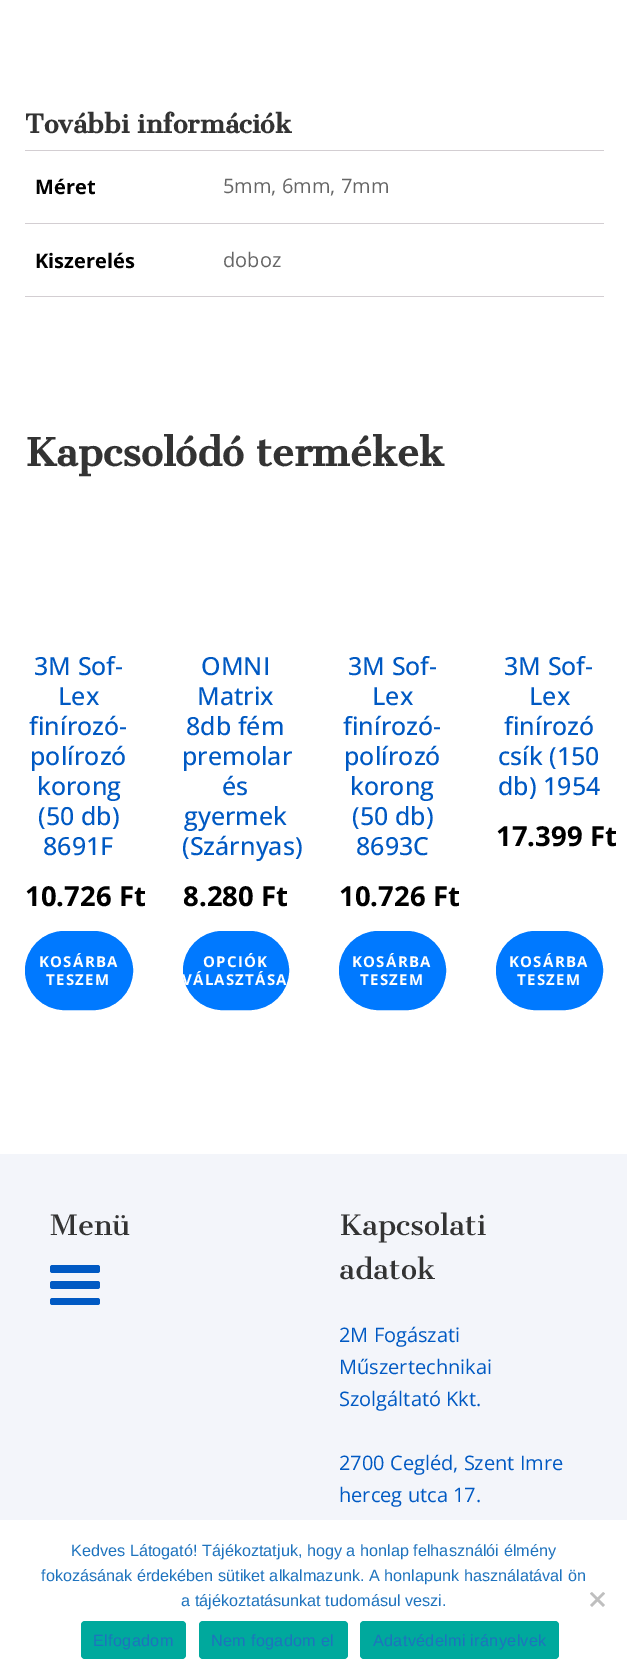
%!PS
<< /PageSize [627 1677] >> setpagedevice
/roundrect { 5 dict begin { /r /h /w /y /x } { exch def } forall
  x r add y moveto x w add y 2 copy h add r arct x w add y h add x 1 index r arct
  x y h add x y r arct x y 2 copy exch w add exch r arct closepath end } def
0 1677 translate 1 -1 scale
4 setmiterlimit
1 setgray
0 0 627 1677 rectfill
/CantataOne-Bold [25 0 0 -25 0 0] selectfont
0.2 setgray
25 133 moveto (További információk) show
0.827 0.808 0.824 setrgbcolor
25 150 579 1 rectfill
/OpenSans-Bold [20 0 0 -20 0 0] selectfont
0 setgray
35 194 moveto (Méret) show
/OpenSans-Regular [20 0 0 -20 0 0] selectfont
0.4 setgray
223 193 moveto (5mm, 6mm, 7mm) show
0.827 0.808 0.824 setrgbcolor
25 223 579 1 rectfill
/OpenSans-Bold [20 0 0 -20 0 0] selectfont
0 setgray
35 268 moveto (Kiszerelés) show
0.827 0.808 0.824 setrgbcolor
25 296 579 1 rectfill
/OpenSans-Regular [20 0 0 -20 0 0] selectfont
0.4 setgray
223 267 moveto (doboz) show
/CantataOne-Bold [37.5 0 0 -37.5 0 0] selectfont
0.2 setgray
25 466 moveto (Kapcsolódó termékek) show
/OpenSans-Medium [25 0 0 -25 0 0] selectfont
0 0.349 0.765 setrgbcolor
34 675 moveto (3M Sof-) show
58 705 moveto (Lex) show
29 735 moveto (finírozó-) show
30 765 moveto (polírozó) show
37 795 moveto (korong) show
38 825 moveto (\(50 db\)) show
43 855 moveto (8691F) show
/OpenSans-Bold [27.5 0 0 -27.5 0 0] selectfont
0 setgray
25 906 moveto (10.726 Ft) show
0 0.475 1 setrgbcolor
25.5 931.5 107 78 39 roundrect gsave fill grestore
stroke
/OpenSans-Bold [15 0 0 -15 0 0] selectfont
1 setgray
39 967 moveto 1.25 0 (KOSÁRBA) ashow
46 985 moveto 1.25 0 (TESZEM) ashow
/OpenSans-Medium [25 0 0 -25 0 0] selectfont
0 0.349 0.765 setrgbcolor
201 675 moveto (OMNI) show
197 705 moveto (Matrix) show
186 735 moveto (8db fém) show
182 765 moveto (premolar) show
222 795 moveto (és) show
184 825 moveto (gyermek) show
182 855 moveto (\(Szárnyas\)) show
/OpenSans-Bold [27.5 0 0 -27.5 0 0] selectfont
0 setgray
183 906 moveto (8.280 Ft) show
0 0.475 1 setrgbcolor
183.5 931.5 105 78 39 roundrect gsave fill grestore
stroke
/OpenSans-Bold [15 0 0 -15 0 0] selectfont
1 setgray
203 967 moveto 1.25 0 (OPCIÓK) ashow
182 985 moveto 1.25 0 (VÁLASZTÁSA) ashow
/OpenSans-Medium [25 0 0 -25 0 0] selectfont
0 0.349 0.765 setrgbcolor
348 675 moveto (3M Sof-) show
372 705 moveto (Lex) show
343 735 moveto (finírozó-) show
344 765 moveto (polírozó) show
350 795 moveto (korong) show
352 825 moveto (\(50 db\)) show
356 855 moveto (8693C) show
/OpenSans-Bold [27.5 0 0 -27.5 0 0] selectfont
0 setgray
339 906 moveto (10.726 Ft) show
0 0.475 1 setrgbcolor
339.5 931.5 106 78 39 roundrect gsave fill grestore
stroke
/OpenSans-Bold [15 0 0 -15 0 0] selectfont
1 setgray
352 967 moveto 1.25 0 (KOSÁRBA) ashow
360 985 moveto 1.25 0 (TESZEM) ashow
/OpenSans-Medium [25 0 0 -25 0 0] selectfont
0 0.349 0.765 setrgbcolor
504 675 moveto (3M Sof-) show
529 705 moveto (Lex) show
504 735 moveto (finírozó) show
498 765 moveto (csík \(150) show
498 795 moveto (db\) 1954) show
/OpenSans-Bold [27.5 0 0 -27.5 0 0] selectfont
0 setgray
496 846 moveto (17.399 Ft) show
0 0.475 1 setrgbcolor
496.5 931.5 106 78 39 roundrect gsave fill grestore
stroke
/OpenSans-Bold [15 0 0 -15 0 0] selectfont
1 setgray
509 967 moveto 1.25 0 (KOSÁRBA) ashow
517 985 moveto 1.25 0 (TESZEM) ashow
0.953 0.961 0.98 setrgbcolor
0 1154 627 366 rectfill
/CantataOne-Regular [27.5 0 0 -27.5 0 0] selectfont
0.2 setgray
50 1235 moveto (Menü) show
0 0.349 0.765 setrgbcolor
50 1265 50 8 2.5 roundrect fill
50 1281 50 8 2.5 roundrect fill
50 1298 50 7 2.5 roundrect fill
0.2 setgray
339 1235 moveto (Kapcsolati) show
339 1279 moveto (adatok) show
/OpenSans-Regular [20 0 0 -20 0 0] selectfont
0 0.349 0.765 setrgbcolor
339 1342 moveto (2M Fogászati) show
339 1374 moveto (Műszertechnikai) show
339 1406 moveto (Szolgáltató Kkt.) show
339 1470 moveto (2700 Cegléd, Szent Imre) show
339 1502 moveto (herceg utca 17.) show
/LiberationSans-Regular [16.25 0 0 -16.25 0 0] selectfont
0.118 0.451 0.745 setrgbcolor
71 1556 moveto (Kedves Látogató! Tájékoztatjuk, hogy a honlap felhasználói élmény) show
41 1581 moveto (fokozásának érdekében sütiket alkalmazunk. A honlapunk használatával ön) show
181 1606 moveto (a tájékoztatásunkat tudomásul veszi.) show
0.749 setgray
newpath 603 1592 moveto 605 1593.5 lineto 592 1607 lineto 590 1605 lineto closepath fill
newpath 590 1593.5 moveto 592 1592 lineto 605 1605 lineto 603 1607 lineto closepath fill
0 0.663 0.616 setrgbcolor
81 1621 105 38 4 roundrect fill
0.118 0.451 0.745 setrgbcolor
93 1646 moveto 0.3 0 (Elfogadom) ashow
0 0.663 0.616 setrgbcolor
199 1621 149 38 4 roundrect fill
0.118 0.451 0.745 setrgbcolor
211 1646 moveto 0.3 0 (Nem fogadom el) ashow
0 0.663 0.616 setrgbcolor
360 1621 199 38 4 roundrect fill
0.118 0.451 0.745 setrgbcolor
373 1646 moveto 0.3 0 (Adatvédelmi irányelvek) ashow
showpage
